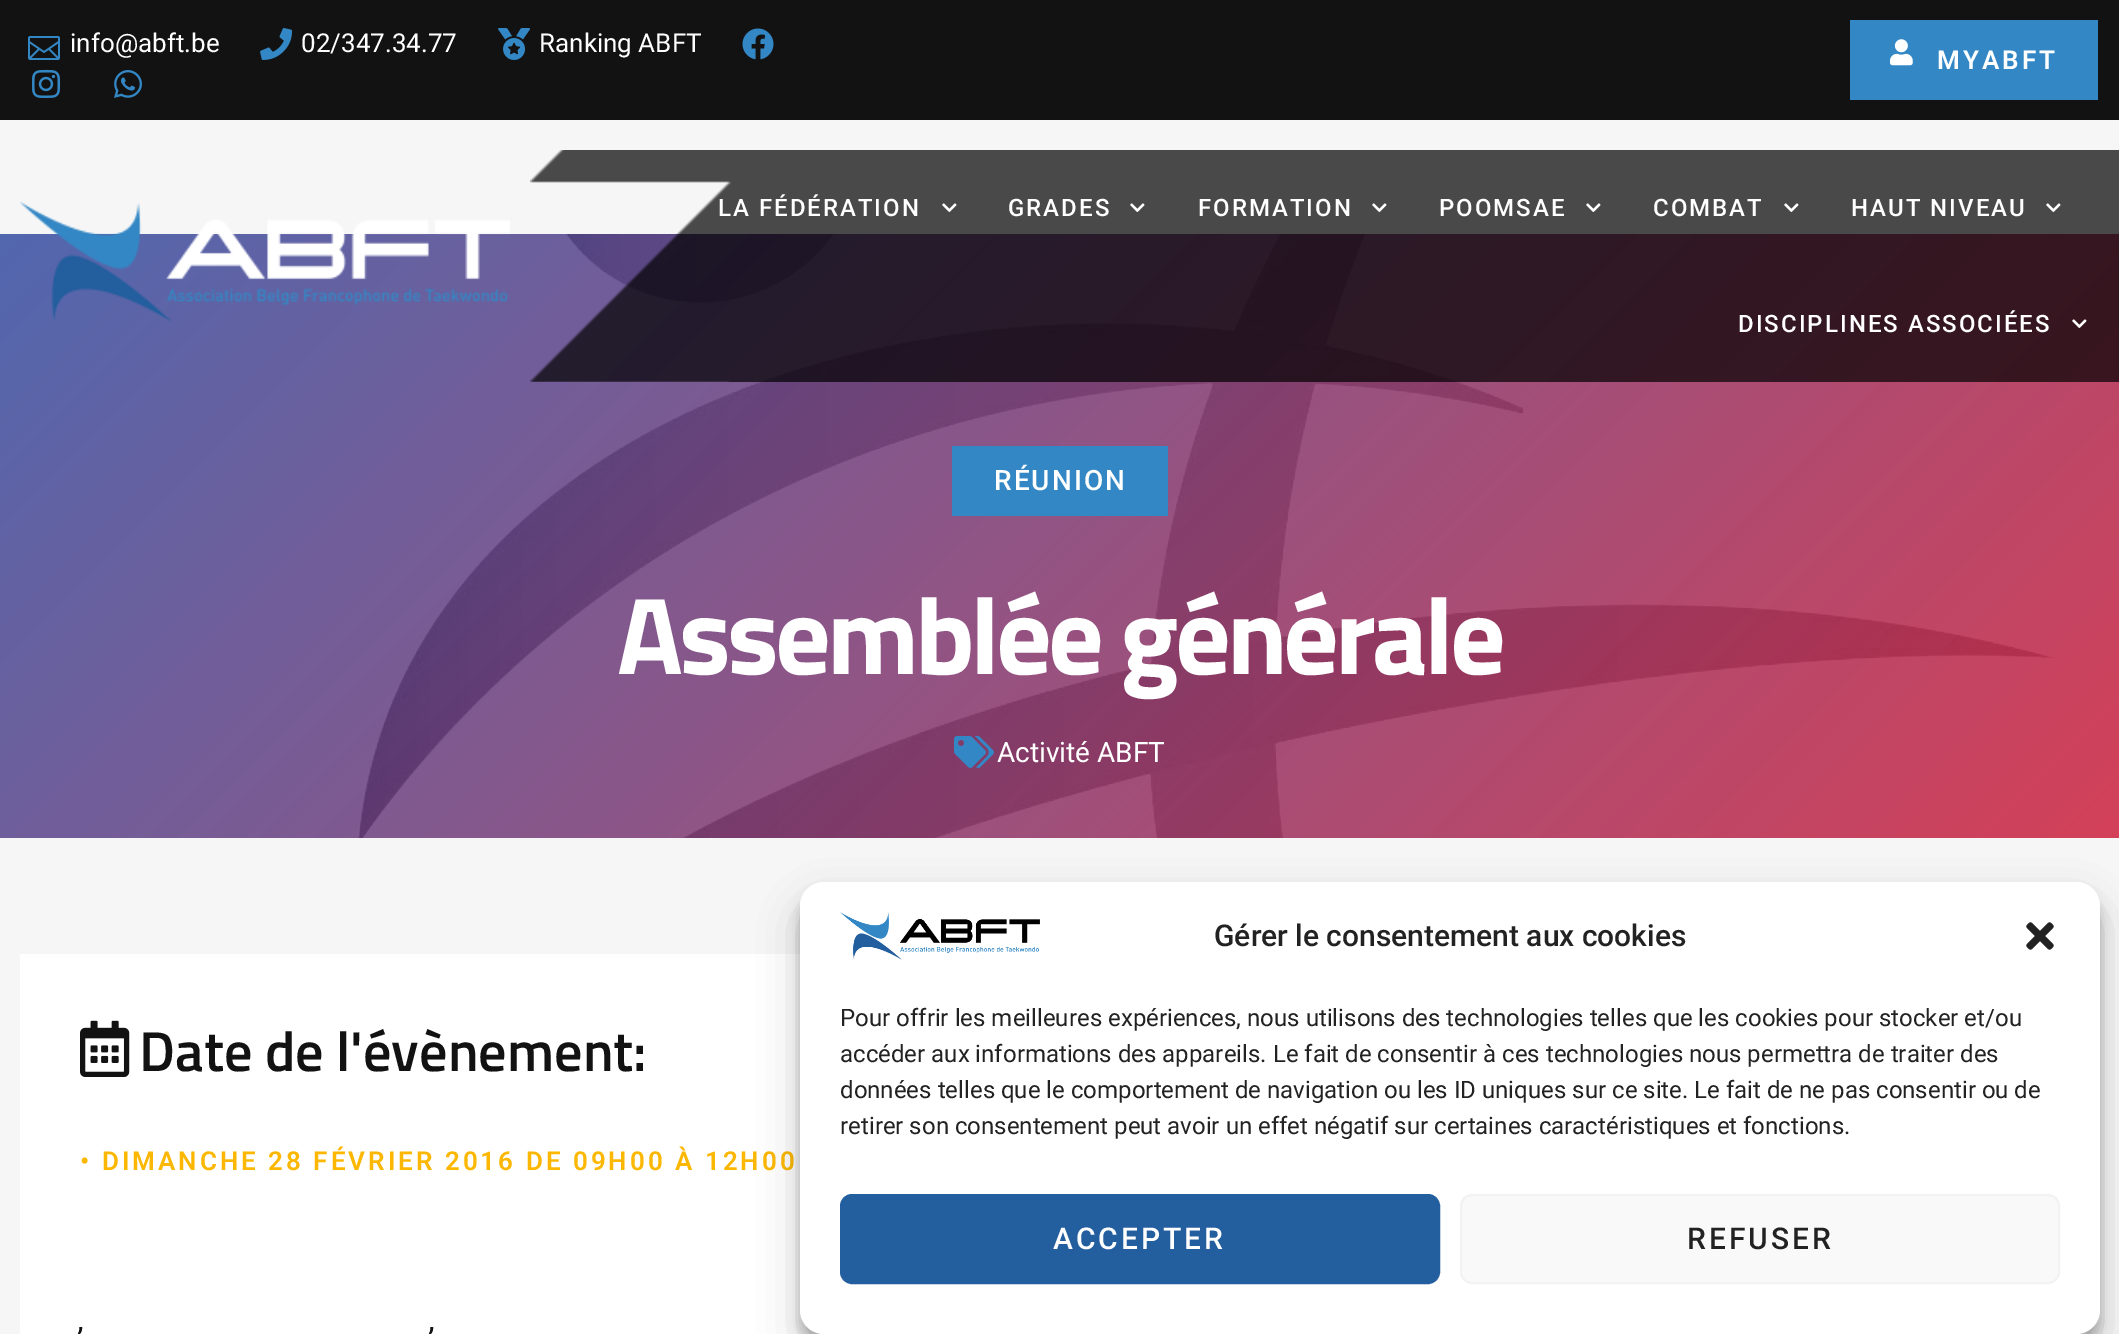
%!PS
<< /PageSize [2119 1334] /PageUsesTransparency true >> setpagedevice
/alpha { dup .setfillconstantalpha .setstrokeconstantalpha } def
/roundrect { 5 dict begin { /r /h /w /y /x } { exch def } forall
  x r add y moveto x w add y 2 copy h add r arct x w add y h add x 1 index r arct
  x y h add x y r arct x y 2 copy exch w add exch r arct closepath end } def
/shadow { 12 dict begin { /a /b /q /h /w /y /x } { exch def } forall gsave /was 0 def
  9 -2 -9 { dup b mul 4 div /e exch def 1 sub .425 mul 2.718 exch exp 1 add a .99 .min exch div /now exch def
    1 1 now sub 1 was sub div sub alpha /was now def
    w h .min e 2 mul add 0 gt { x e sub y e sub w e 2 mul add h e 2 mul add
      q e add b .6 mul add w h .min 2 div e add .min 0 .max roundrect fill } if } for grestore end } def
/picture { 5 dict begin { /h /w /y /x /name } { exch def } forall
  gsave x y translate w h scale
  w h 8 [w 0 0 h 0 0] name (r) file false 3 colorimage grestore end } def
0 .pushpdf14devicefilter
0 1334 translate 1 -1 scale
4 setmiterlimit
0.965 setgray
0 0 2119 1334 rectfill
0.071 setgray
0 0 2119 120 rectfill
(img1.rgb) 28 36 32 24 picture
/Roboto-Regular [26 0 0 -26 0 0] selectfont
1 setgray
70 52 moveto (info@abft.be) show
(img2.rgb) 260 28 33 32 picture
301 52 moveto (02/347.34.77) show
(img3.rgb) 498 28 32 32 picture
539 52 moveto (Ranking ABFT) show
(img4.rgb) 742 28 32 32 picture
(img5.rgb) 32 69 29 29 picture
(img6.rgb) 114 70 28 28 picture
0.2 0.529 0.769 setrgbcolor
1850 20 248 80 rectfill
(img7.rgb) 1890 39 23 27 picture
/Roboto-SemiBold [26 0 0 -26 0 0] selectfont
1 setgray
1937 69 moveto 3 0 (MYABFT) ashow
gsave newpath 0 234 moveto 2119 234 lineto 2119 838 lineto 0 838 lineto closepath clip newpath
<< /ShadingType 2 /ColorSpace /DeviceRGB /Coords [379 -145 1741 1217] /Extend [true true] /Function << /FunctionType 2 /Domain [0 1] /C0 [0.149 0.255 0.604] /C1 [0.784 0.063 0.18] /N 1 >> >> shfill grestore
(img12.rgb) 0 234 2119 604 picture
(img8.rgb) 20 202 490 120 picture
(img9.rgb) 530 150 1589 232 picture
/Roboto-Medium [24 0 0 -24 0 0] selectfont
718 216 moveto 2 0 (LA FÉDÉRATION) ashow
(img10.rgb) 942 203 15 9 picture
1008 216 moveto 2 0 (GRADES) ashow
(img10.rgb) 1130 203 15 9 picture
1198 216 moveto 2 0 (FORMATION) ashow
(img10.rgb) 1372 203 15 9 picture
1439 216 moveto 2 0 (POOMSAE) ashow
(img10.rgb) 1586 203 15 9 picture
1653 216 moveto 2 0 (COMBAT) ashow
(img10.rgb) 1784 203 15 9 picture
1851 216 moveto 2 0 (HAUT NIVEAU) ashow
(img10.rgb) 2046 203 15 9 picture
1738 332 moveto 2 0 (DISCIPLINES ASSOCIÉES) ashow
(img11.rgb) 2072 319 15 9 picture
0.2 0.529 0.769 setrgbcolor
952 446 216 70 rectfill
/Roboto-Medium [28 0 0 -28 0 0] selectfont
1 setgray
994 490 moveto 2 0 (RÉUNION) ashow
/TitilliumWeb-Bold [109.75 0 0 -109.75 0 0] selectfont
617 674 moveto -4 0 (Assemblée générale) ashow
(img13.rgb) 954 736 40 32 picture
/Roboto-Regular [28 0 0 -28 0 0] selectfont
997 762 moveto (Activité ABFT) show
20 954 804 380 rectfill
(img14.rgb) 80 1020 50 57 picture
/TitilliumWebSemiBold-SemiBold [56.25 0 0 -56.25 0 0] selectfont
0.071 setgray
139 1071 moveto (Date de l'évènement:) show
/Roboto-SemiBold [26 0 0 -26 0 0] selectfont
0.984 0.718 0.008 setrgbcolor
80 1170 moveto 3 0 (• DIMANCHE 28 FÉVRIER 2016 DE 09H00 À 12H00) ashow
/Roboto-Regular [32 0 0 -32 0 0] selectfont
0.071 setgray
77 1351 moveto (’) show
428 1351 moveto (’) show
1 setgray
2076 1331 10 3 rectfill
0 setgray
800 894 1300 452 24 6 0.23 shadow
800 902 1300 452 24 20 0.19 shadow
1 setgray
800 882 1300 452 24 roundrect fill
(img15.rgb) 840 912 200 48 picture
/Roboto-Medium [30 0 0 -30 0 0] selectfont
0.133 setgray
1214 946 moveto (Gérer le consentement aux cookies) show
(img16.rgb) 2026 922 28 28 picture
/Roboto-Regular [24 0 0 -24 0 0] selectfont
840 1026 moveto (Pour offrir les meilleures expériences, nous utilisons des technologies telles que les cookies pour stocker et/ou) show
840 1062 moveto (accéder aux informations des appareils. Le fait de consentir à ces technologies nous permettra de traiter des) show
840 1098 moveto (données telles que le comportement de navigation ou les ID uniques sur ce site. Le fait de ne pas consentir ou de) show
840 1134 moveto (retirer son consentement peut avoir un effet négatif sur certaines caractéristiques et fonctions.) show
0.137 0.369 0.62 setrgbcolor
841 1195 598 88 11 roundrect gsave fill grestore
2 setlinewidth
stroke
/Roboto-Medium [30 0 0 -30 0 0] selectfont
1 setgray
1053 1249 moveto 3 0 (ACCEPTER) ashow
0.976 setgray
1461 1195 598 88 11 roundrect gsave fill grestore
0.949 setgray
stroke
0.133 setgray
1687 1249 moveto 3 0 (REFUSER) ashow
.poppdf14devicefilter showpage
